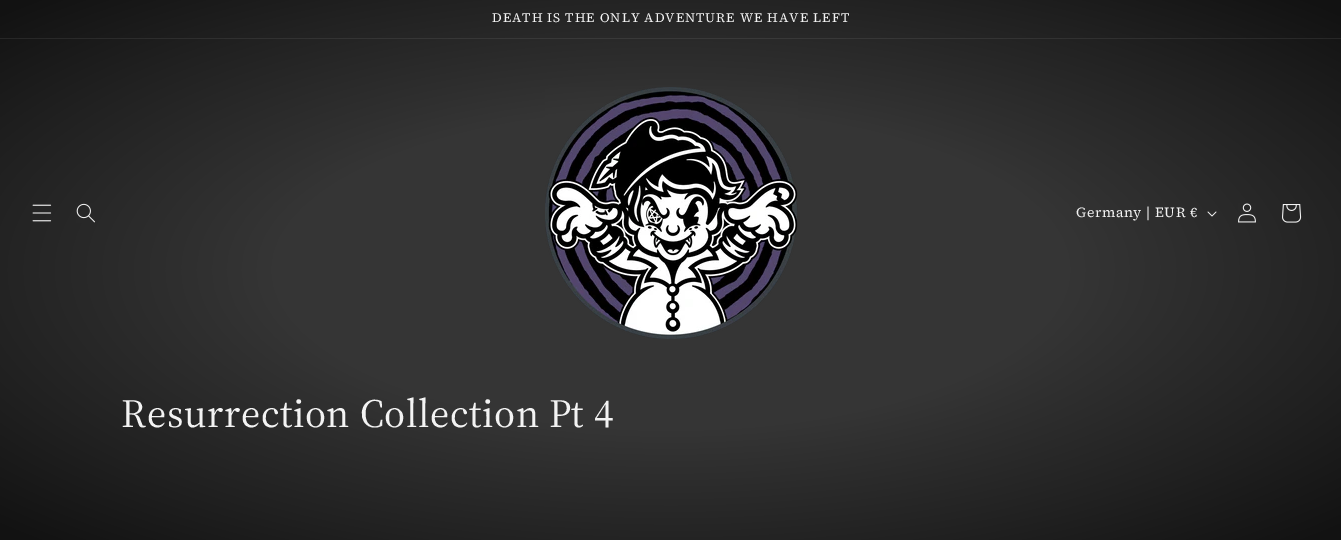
%!PS
<< /PageSize [1341 540] >> setpagedevice
/picture { 5 dict begin { /h /w /y /x /name } { exch def } forall
  gsave x y translate w h scale
  w h 8 [w 0 0 h 0 0] name (r) file false 3 colorimage grestore end } def
0 540 translate 1 -1 scale
4 setmiterlimit
1 setgray
0 0 1341 540 rectfill
gsave newpath 0 0 moveto 1341 0 lineto 1341 540 lineto 0 540 lineto closepath clip newpath 671 270 translate 948 382 scale
<< /ShadingType 3 /ColorSpace /DeviceRGB /Coords [0 0 0 0 0 1] /Extend [true true] /Function << /FunctionType 3 /Domain [0 1] /Functions [<< /FunctionType 2 /Domain [0 1] /C0 [0.208 0.208 0.208] /C1 [0.208 0.208 0.208] /N 1 >> << /FunctionType 2 /Domain [0 1] /C0 [0.208 0.208 0.208] /C1 [0.071 0.071 0.071] /N 1 >> << /FunctionType 2 /Domain [0 1] /C0 [0.071 0.071 0.071] /C1 [0.071 0.071 0.071] /N 1 >>] /Bounds [0.42 0.99] /Encode [0 1 0 1 0 1] >> >> shfill grestore
gsave newpath 0 38 moveto 1341 38 lineto 1341 39 lineto 0 39 lineto closepath clip newpath 671 270 translate 948 382 scale
<< /ShadingType 3 /ColorSpace /DeviceRGB /Coords [0 0 0 0 0 1] /Extend [true true] /Function << /FunctionType 3 /Domain [0 1] /Functions [<< /FunctionType 2 /Domain [0 1] /C0 [0.267 0.267 0.267] /C1 [0.267 0.267 0.267] /N 1 >> << /FunctionType 2 /Domain [0 1] /C0 [0.267 0.267 0.267] /C1 [0.141 0.141 0.141] /N 1 >> << /FunctionType 2 /Domain [0 1] /C0 [0.141 0.141 0.141] /C1 [0.141 0.141 0.141] /N 1 >>] /Bounds [0.42 0.99] /Encode [0 1 0 1 0 1] >> >> shfill grestore
/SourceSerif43-Regular [13 0 0 -13 0 0] selectfont
0.953 setgray
492 22 moveto 1 0 (DEATH IS THE ONLY ADVENTURE WE HAVE LEFT) ashow
(img1.rgb) 32 204 20 18 picture
(img2.rgb) 76 203 19 20 picture
(img3.rgb) 545 87 253 252 picture
/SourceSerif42-Regular [14 0 0 -14 0 0] selectfont
1076 217 moveto 0.6 0 (Germany | EUR €) ashow
(img4.rgb) 1207 211 10 6 picture
(img5.rgb) 1238 203 18 20 picture
(img6.rgb) 1282 204 20 19 picture
/SourceSerif4-Regular [40 0 0 -40 0 0] selectfont
121 427 moveto 0.6 0 (Resurrection Collection Pt 4) ashow
showpage
